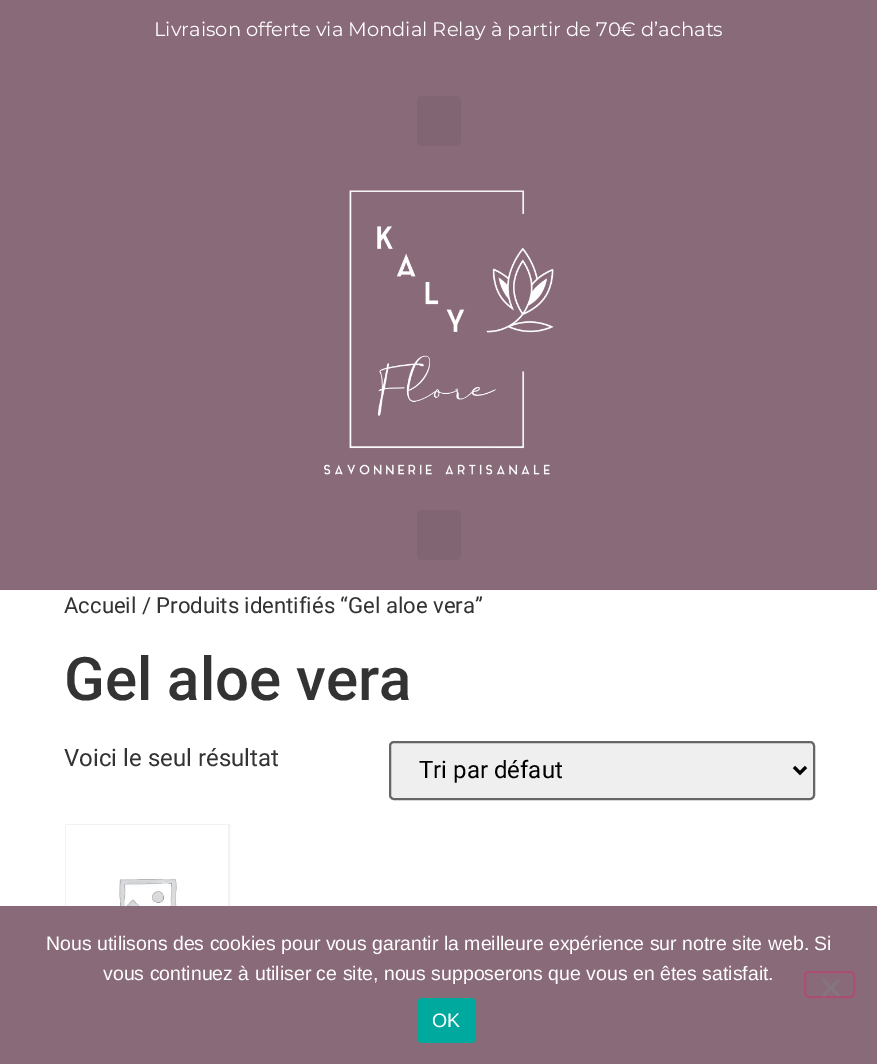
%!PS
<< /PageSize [877 1064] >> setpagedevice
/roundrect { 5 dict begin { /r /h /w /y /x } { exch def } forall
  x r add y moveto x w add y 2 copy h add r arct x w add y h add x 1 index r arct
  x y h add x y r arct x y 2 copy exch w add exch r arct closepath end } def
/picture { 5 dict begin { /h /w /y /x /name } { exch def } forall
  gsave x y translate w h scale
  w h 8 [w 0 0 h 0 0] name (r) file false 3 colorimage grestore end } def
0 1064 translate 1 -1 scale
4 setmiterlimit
1 setgray
0 0 877 1064 rectfill
0.537 0.416 0.475 setrgbcolor
0 0 877 590 rectfill
/Montserrat-Regular [19.5 0 0 -19.5 0 0] selectfont
1 setgray
154 36 moveto (Livraison offerte via Mondial Relay à partir de 70€ d’achats) show
0.51 0.396 0.451 setrgbcolor
417 96 44 50 5 roundrect fill
(img1.rgb) 324 190 230 285 picture
417 510 44 50 5 roundrect fill
/Roboto-Regular [22.1 0 0 -22.1 0 0] selectfont
0.2 setgray
64 613 moveto (Accueil / Produits identifiés “Gel aloe vera”) show
/Roboto-Medium [60 0 0 -60 0 0] selectfont
64 700 moveto (Gel aloe vera) show
/Roboto-Regular [24 0 0 -24 0 0] selectfont
64 766 moveto (Voici le seul résultat) show
0.937 setgray
390 742 424 57 4 roundrect gsave fill grestore
0.4 setgray
2 setlinewidth
stroke
0 setgray
3 setlinewidth
newpath 794 767 moveto 800 773 lineto 806 767 lineto stroke
419 778 moveto (Tri par défaut) show
0.949 setgray
2 setlinewidth
66 825 163 163 rectstroke
(img2.rgb) 66 825 162 81 picture
0.537 0.416 0.475 setrgbcolor
0 906 877 158 rectfill
/LiberationSans-Regular [19.5 0 0 -19.5 0 0] selectfont
1 setgray
46 950 moveto (Nous utilisons des cookies pour vous garantir la meilleure expérience sur notre site web. Si) show
103 980 moveto (vous continuez à utiliser ce site, nous supposerons que vous en êtes satisfait.) show
0.671 0.31 0.439 setrgbcolor
805 972 49 25 4 roundrect stroke
0.522 0.459 0.49 setrgbcolor
newpath 838 978.5 moveto 840 981 lineto 824 997 lineto 822 994.5 lineto closepath fill
newpath 822 981 moveto 824 978.5 lineto 840 994.5 lineto 838 997 lineto closepath fill
0 0.663 0.616 setrgbcolor
417 998 59 45 5 roundrect fill
1 setgray
432 1027 moveto (OK) show
showpage
